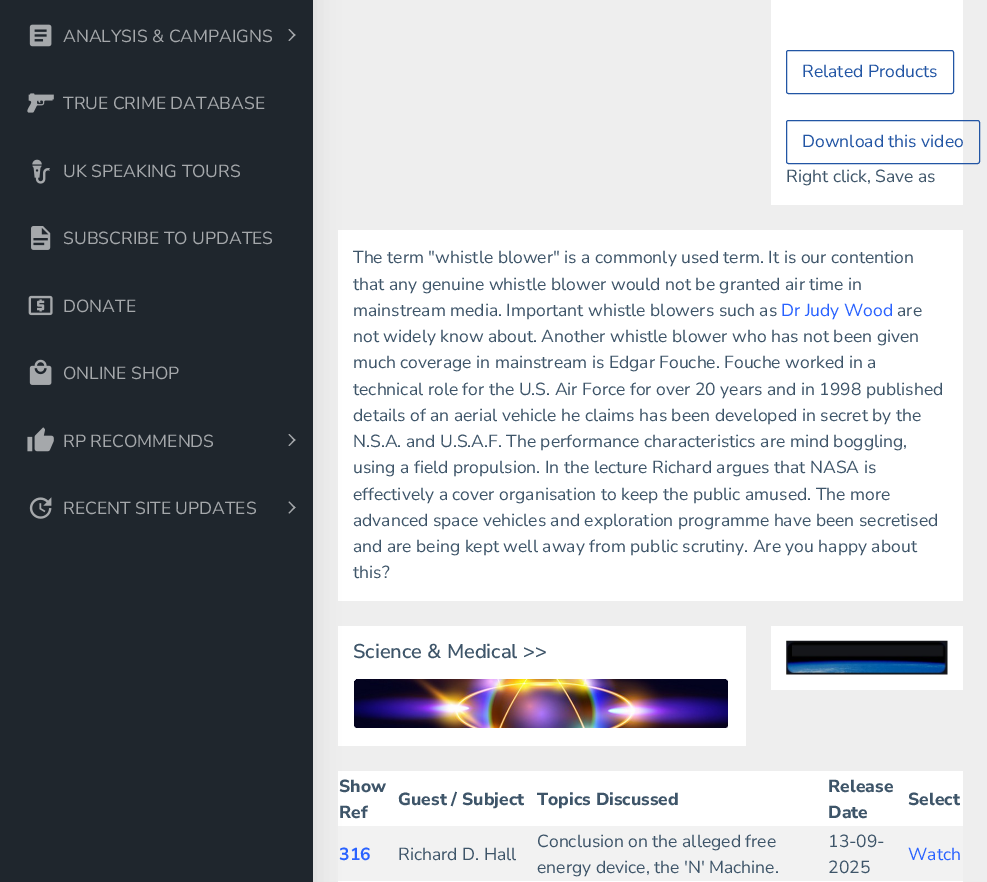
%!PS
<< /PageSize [987 882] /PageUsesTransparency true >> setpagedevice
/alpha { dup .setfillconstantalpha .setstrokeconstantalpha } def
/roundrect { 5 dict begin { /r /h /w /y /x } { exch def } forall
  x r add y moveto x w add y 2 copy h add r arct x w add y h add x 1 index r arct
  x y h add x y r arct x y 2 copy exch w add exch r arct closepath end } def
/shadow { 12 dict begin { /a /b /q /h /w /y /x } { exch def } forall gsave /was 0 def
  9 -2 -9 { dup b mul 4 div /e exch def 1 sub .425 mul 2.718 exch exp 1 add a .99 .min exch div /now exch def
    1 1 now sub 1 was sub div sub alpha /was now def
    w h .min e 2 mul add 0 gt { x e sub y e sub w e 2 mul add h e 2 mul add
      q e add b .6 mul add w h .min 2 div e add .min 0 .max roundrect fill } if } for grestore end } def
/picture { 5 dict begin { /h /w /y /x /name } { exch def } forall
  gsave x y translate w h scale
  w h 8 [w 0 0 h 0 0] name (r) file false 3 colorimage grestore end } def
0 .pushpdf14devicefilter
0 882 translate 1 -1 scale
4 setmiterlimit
0.933 setgray
0 0 987 882 rectfill
1 setgray
338 230 625 371 rectfill
338 626 408 120 rectfill
338 771 625 111 rectfill
0.949 setgray
338 826 625 55 rectfill
0 setgray
1 -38 313 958 0 12.5 0.08 shadow
0.122 0.149 0.176 setrgbcolor
0 0 313 882 rectfill
(img1.rgb) 29 24 23 23 picture
/NunitoSans-Regular [17.5 0 0 -17.5 0 0] selectfont
0.647 0.659 0.671 setrgbcolor
63 42 moveto (ANALYSIS & CAMPAIGNS) show
newpath 295.5 35 moveto 289.5 41 lineto 288.5 40.5 lineto 294.5 34 lineto closepath fill
newpath 295.5 35 moveto 294.5 36 lineto 288.5 29.5 lineto 289.5 29 lineto closepath fill
(img2.rgb) 27 93 27 20 picture
63 109 moveto (TRUE CRIME DATABASE) show
(img3.rgb) 32 159 18 25 picture
63 177 moveto (UK SPEAKING TOURS) show
(img4.rgb) 31 226 20 24 picture
63 244 moveto (SUBSCRIBE TO UPDATES) show
(img5.rgb) 28 295 25 21 picture
63 312 moveto (DONATE) show
(img6.rgb) 29 359 23 26 picture
63 379 moveto (ONLINE SHOP) show
(img7.rgb) 27 427 27 25 picture
63 447 moveto (RP RECOMMENDS) show
newpath 295.5 440 moveto 289.5 446 lineto 288.5 445.5 lineto 294.5 439 lineto closepath fill
newpath 295.5 440 moveto 294.5 441 lineto 288.5 434.5 lineto 289.5 434 lineto closepath fill
(img8.rgb) 29 497 23 22 picture
63 514 moveto (RECENT SITE UPDATES) show
newpath 295.5 507.5 moveto 289.5 513.5 lineto 288.5 513 lineto 294.5 506.5 lineto closepath fill
newpath 295.5 507.5 moveto 294.5 508.5 lineto 288.5 502 lineto 289.5 501.5 lineto closepath fill
1 setgray
771 0 192 205 rectfill
0.133 0.333 0.643 setrgbcolor
786.5 50.5 167 43 2 roundrect stroke
802 77 moveto (Related Products) show
786.5 120.5 193 43 2 roundrect stroke
802 147 moveto (Download this video) show
0.243 0.333 0.412 setrgbcolor
786 182 moveto (Right click, Save as) show
353 263 moveto (The term "whistle blower" is a commonly used term. It is our contention) show
353 290 moveto (that any genuine whistle blower would not be granted air time in) show
353 316 moveto (mainstream media. Important whistle blowers such as) show
0.161 0.384 1 setrgbcolor
781 316 moveto (Dr Judy Wood) show
0.243 0.333 0.412 setrgbcolor
897 316 moveto (are) show
353 342 moveto (not widely know about. Another whistle blower who has not been given) show
353 368 moveto (much coverage in mainstream is Edgar Fouche. Fouche worked in a) show
353 395 moveto (technical role for the U.S. Air Force for over 20 years and in 1998 published) show
353 421 moveto (details of an aerial vehicle he claims has been developed in secret by the) show
353 447 moveto (N.S.A. and U.S.A.F. The performance characteristics are mind boggling,) show
353 473 moveto (using a field propulsion. In the lecture Richard argues that NASA is) show
353 500 moveto (effectively a cover organisation to keep the public amused. The more) show
353 526 moveto (advanced space vehicles and exploration programme have been secretised) show
353 552 moveto (and are being kept well away from public scrutiny. Are you happy about) show
353 578 moveto (this?) show
/NunitoSans-SemiBold [20 0 0 -20 0 0] selectfont
353 658 moveto (Science & Medical >>) show
(img9.rgb) 354 679 374 49 picture
1 setgray
771 626 192 64 rectfill
(img10.rgb) 786 640 162 35 picture
/NunitoSans-ExtraBold [17.5 0 0 -17.5 0 0] selectfont
0.243 0.333 0.412 setrgbcolor
339 792 moveto (Show) show
339 818 moveto (Ref) show
398 805 moveto (Guest / Subject) show
537 805 moveto (Topics Discussed) show
828 792 moveto (Release) show
828 818 moveto (Date) show
908 805 moveto (Select) show
/NunitoSans-Bold [17.5 0 0 -17.5 0 0] selectfont
0.161 0.384 1 setrgbcolor
339 860 moveto (316) show
/NunitoSans-Regular [17.5 0 0 -17.5 0 0] selectfont
0.243 0.333 0.412 setrgbcolor
398 860 moveto (Richard D. Hall) show
537 847 moveto (Conclusion on the alleged free) show
537 873 moveto (energy device, the 'N' Machine.) show
828 847 moveto (13-09-) show
828 873 moveto (2025) show
0.161 0.384 1 setrgbcolor
908 860 moveto (Watch) show
.poppdf14devicefilter showpage
